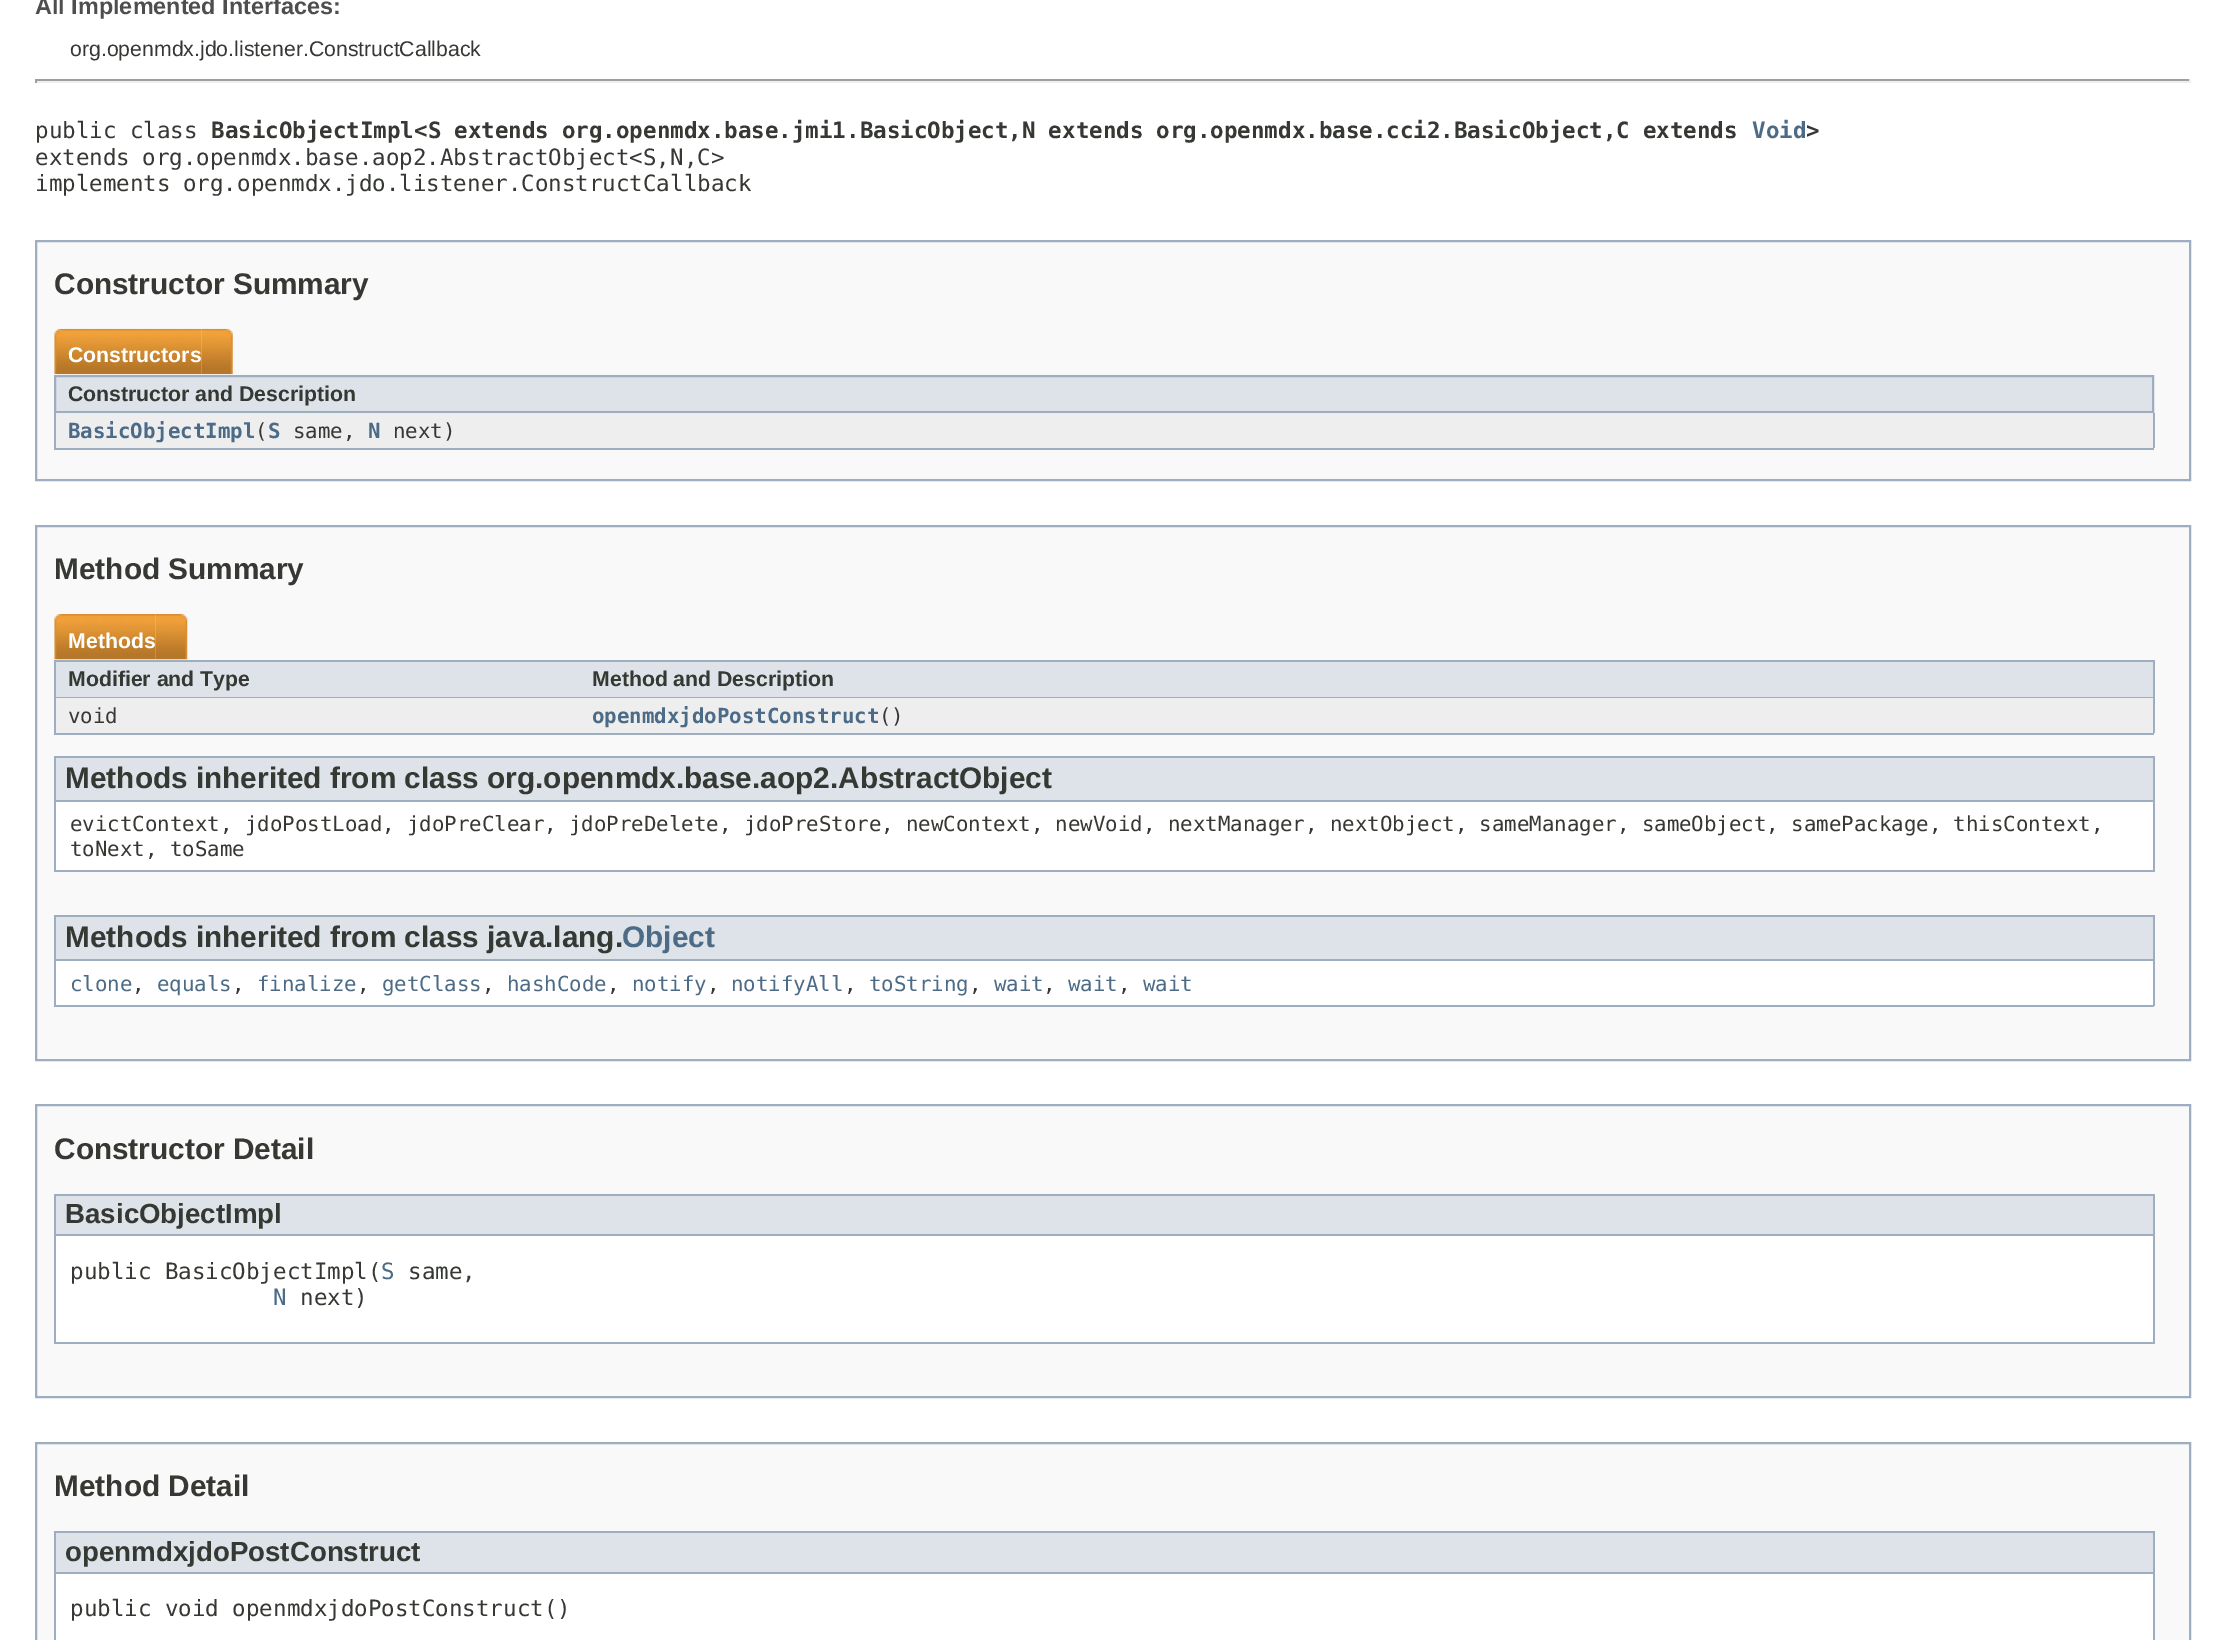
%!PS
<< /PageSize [2226 1640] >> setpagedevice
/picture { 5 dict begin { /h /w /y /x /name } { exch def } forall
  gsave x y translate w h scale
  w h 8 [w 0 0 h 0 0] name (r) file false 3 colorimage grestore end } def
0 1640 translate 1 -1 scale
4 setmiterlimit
1 setgray
0 0 2226 1640 rectfill
/LiberationSans-Bold [23.4 0 0 -23.4 0 0] selectfont
0.306 setgray
35 14 moveto (All Implemented Interfaces:) show
/LiberationSans-Regular [21.25 0 0 -21.25 0 0] selectfont
0.208 0.22 0.2 setrgbcolor
70 56 moveto (org.openmdx.jdo.listener.ConstructCallback) show
0.624 setgray
35 79 2156 2 rectfill
0.933 setgray
2189 79 2 4 rectfill
35 81 2156 2 rectfill
0.624 setgray
35 79 2 4 rectfill
/DejaVuSansMono-Regular [22.48 0 0 -22.48 0 0] selectfont
0.208 0.22 0.2 setrgbcolor
35 138 moveto (public class) show
/DejaVuSansMono-Bold [22.48 0 0 -22.48 0 0] selectfont
211 138 moveto -0.5 0 32 (BasicObjectImpl<S extends org.openmdx.base.jmi1.BasicObject,N extends org.openmdx.base.cci2.BasicObject,C extends) widthshow
0.298 0.42 0.529 setrgbcolor
1752 138 moveto (Void) show
0.208 0.22 0.2 setrgbcolor
1806 138 moveto (>) show
/DejaVuSansMono-Regular [22.48 0 0 -22.48 0 0] selectfont
35 165 moveto -1 0 32 (extends org.openmdx.base.aop2.AbstractObject<S,N,C>) widthshow
35 191 moveto -1 0 32 (implements org.openmdx.jdo.listener.ConstructCallback) widthshow
0.976 setgray
newpath 36 241 moveto 2190 241 lineto 2190 480 lineto 36 480 lineto closepath gsave fill grestore
0.62 0.678 0.753 setrgbcolor
2 setlinewidth
stroke
/LiberationSans-Bold [29.8 0 0 -29.8 0 0] selectfont
0.208 0.22 0.2 setrgbcolor
54 294 moveto (Constructor Summary) show
0.62 0.678 0.753 setrgbcolor
54 448 2100 2 rectfill
(img1.rgb) 54 328 148 47 picture
/LiberationSans-Bold [21.25 0 0 -21.25 0 0] selectfont
1 setgray
68 362 moveto (Constructors) show
(img2.rgb) 201 328 32 47 picture
0.871 0.89 0.914 setrgbcolor
newpath 55 376 moveto 2153 376 lineto 2153 412 lineto 55 412 lineto closepath gsave fill grestore
0.62 0.678 0.753 setrgbcolor
stroke
0.208 0.22 0.2 setrgbcolor
68 401 moveto (Constructor and Description) show
0.933 0.933 0.937 setrgbcolor
56 413 2097 35 rectfill
0.62 0.678 0.753 setrgbcolor
2153 413 2 35 rectfill
54 413 2 35 rectfill
/DejaVuSansMono-Bold [20.75 0 0 -20.75 0 0] selectfont
0.298 0.42 0.529 setrgbcolor
68 438 moveto (BasicObjectImpl S) show
/DejaVuSansMono-Regular [20.75 0 0 -20.75 0 0] selectfont
0.208 0.22 0.2 setrgbcolor
255 438 moveto (\() show
293 438 moveto (same,) show
/DejaVuSansMono-Bold [20.75 0 0 -20.75 0 0] selectfont
0.298 0.42 0.529 setrgbcolor
368 438 moveto (N) show
/DejaVuSansMono-Regular [20.75 0 0 -20.75 0 0] selectfont
0.208 0.22 0.2 setrgbcolor
393 438 moveto (next\)) show
0.976 setgray
newpath 36 526 moveto 2190 526 lineto 2190 1060 lineto 36 1060 lineto closepath gsave fill grestore
0.62 0.678 0.753 setrgbcolor
stroke
/LiberationSans-Bold [29.8 0 0 -29.8 0 0] selectfont
0.208 0.22 0.2 setrgbcolor
54 579 moveto (Method Summary) show
0.62 0.678 0.753 setrgbcolor
54 733 2100 2 rectfill
(img3.rgb) 54 614 102 46 picture
/LiberationSans-Bold [21.25 0 0 -21.25 0 0] selectfont
1 setgray
68 648 moveto (Methods) show
(img4.rgb) 155 614 33 46 picture
0.871 0.89 0.914 setrgbcolor
56 662 2097 35 rectfill
0.62 0.678 0.753 setrgbcolor
54 660 2100 2 rectfill
54 697 525 1 rectfill
54 660 2 73 rectfill
0.208 0.22 0.2 setrgbcolor
68 686 moveto (Modifier and Type) show
0.62 0.678 0.753 setrgbcolor
2153 660 2 73 rectfill
579 697 1575 1 rectfill
0.208 0.22 0.2 setrgbcolor
592 686 moveto (Method and Description) show
0.933 0.933 0.937 setrgbcolor
56 698 2097 35 rectfill
/DejaVuSansMono-Regular [20.75 0 0 -20.75 0 0] selectfont
0.208 0.22 0.2 setrgbcolor
68 723 moveto (void) show
/DejaVuSansMono-Bold [20.75 0 0 -20.75 0 0] selectfont
0.298 0.42 0.529 setrgbcolor
592 723 moveto (openmdxjdoPostConstruct) show
/DejaVuSansMono-Regular [20.75 0 0 -20.75 0 0] selectfont
0.208 0.22 0.2 setrgbcolor
879 723 moveto (\(\)) show
1 setgray
56 802 2097 68 rectfill
0.62 0.678 0.753 setrgbcolor
2153 756 2 116 rectfill
54 870 2100 2 rectfill
54 756 2 116 rectfill
0.871 0.89 0.914 setrgbcolor
56 758 2097 42 rectfill
0.62 0.678 0.753 setrgbcolor
56 756 2097 2 rectfill
56 800 2097 2 rectfill
/LiberationSans-Bold [29.8 0 0 -29.8 0 0] selectfont
0.208 0.22 0.2 setrgbcolor
65 788 moveto (Methods inherited from class org.openmdx.base.aop2.AbstractObject) show
/DejaVuSansMono-Regular [20.75 0 0 -20.75 0 0] selectfont
70 831 moveto -0.25 0 32 (evictContext, jdoPostLoad, jdoPreClear, jdoPreDelete, jdoPreStore, newContext, newVoid, nextManager, nextObject, sameManager, sameObject, samePackage, thisContext,) widthshow
70 856 moveto (toNext, toSame) show
1 setgray
56 961 2097 44 rectfill
0.62 0.678 0.753 setrgbcolor
2153 915 2 91 rectfill
54 1005 2100 2 rectfill
54 915 2 91 rectfill
0.871 0.89 0.914 setrgbcolor
56 917 2097 42 rectfill
0.62 0.678 0.753 setrgbcolor
56 915 2097 2 rectfill
56 959 2097 2 rectfill
/LiberationSans-Bold [29.8 0 0 -29.8 0 0] selectfont
0.208 0.22 0.2 setrgbcolor
65 947 moveto (Methods inherited from class java.lang.) show
0.298 0.42 0.529 setrgbcolor
622 947 moveto (Object) show
/DejaVuSansMono-Regular [20.75 0 0 -20.75 0 0] selectfont
70 991 moveto (clone) show
0.208 0.22 0.2 setrgbcolor
132 991 moveto (,) show
0.298 0.42 0.529 setrgbcolor
157 991 moveto (equals) show
0.208 0.22 0.2 setrgbcolor
232 991 moveto (,) show
0.298 0.42 0.529 setrgbcolor
257 991 moveto (finalize) show
0.208 0.22 0.2 setrgbcolor
357 991 moveto (,) show
0.298 0.42 0.529 setrgbcolor
382 991 moveto (getClass) show
0.208 0.22 0.2 setrgbcolor
482 991 moveto (,) show
0.298 0.42 0.529 setrgbcolor
507 991 moveto (hashCode) show
0.208 0.22 0.2 setrgbcolor
607 991 moveto (,) show
0.298 0.42 0.529 setrgbcolor
632 991 moveto (notify) show
0.208 0.22 0.2 setrgbcolor
707 991 moveto (,) show
0.298 0.42 0.529 setrgbcolor
731 991 moveto (notifyAll) show
0.208 0.22 0.2 setrgbcolor
844 991 moveto (,) show
0.298 0.42 0.529 setrgbcolor
869 991 moveto (toString) show
0.208 0.22 0.2 setrgbcolor
969 991 moveto (,) show
0.298 0.42 0.529 setrgbcolor
994 991 moveto (wait) show
0.208 0.22 0.2 setrgbcolor
1043 991 moveto (,) show
0.298 0.42 0.529 setrgbcolor
1068 991 moveto (wait) show
0.208 0.22 0.2 setrgbcolor
1118 991 moveto (,) show
0.298 0.42 0.529 setrgbcolor
1143 991 moveto (wait) show
0.976 setgray
newpath 36 1105 moveto 2190 1105 lineto 2190 1397 lineto 36 1397 lineto closepath gsave fill grestore
0.62 0.678 0.753 setrgbcolor
stroke
/LiberationSans-Bold [29.8 0 0 -29.8 0 0] selectfont
0.208 0.22 0.2 setrgbcolor
54 1159 moveto (Constructor Detail) show
1 setgray
56 1236 2097 106 rectfill
0.62 0.678 0.753 setrgbcolor
2153 1194 2 150 rectfill
54 1342 2100 2 rectfill
54 1194 2 150 rectfill
0.871 0.89 0.914 setrgbcolor
56 1196 2097 38 rectfill
0.62 0.678 0.753 setrgbcolor
56 1194 2097 2 rectfill
56 1234 2097 2 rectfill
/LiberationSans-Bold [27.7 0 0 -27.7 0 0] selectfont
0.208 0.22 0.2 setrgbcolor
65 1223 moveto (BasicObjectImpl) show
/DejaVuSansMono-Regular [22.48 0 0 -22.48 0 0] selectfont
70 1279 moveto (public BasicObjectImpl\() show
0.298 0.42 0.529 setrgbcolor
381 1279 moveto (S) show
0.208 0.22 0.2 setrgbcolor
408 1279 moveto (same,) show
0.298 0.42 0.529 setrgbcolor
273 1305 moveto (N) show
0.208 0.22 0.2 setrgbcolor
300 1305 moveto (next\)) show
0.976 setgray
newpath 36 1443 moveto 2190 1443 lineto 2190 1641 lineto 36 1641 lineto closepath gsave fill grestore
0.62 0.678 0.753 setrgbcolor
stroke
/LiberationSans-Bold [29.8 0 0 -29.8 0 0] selectfont
0.208 0.22 0.2 setrgbcolor
54 1496 moveto (Method Detail) show
1 setgray
56 1574 2097 66 rectfill
0.62 0.678 0.753 setrgbcolor
2153 1531 2 109 rectfill
54 1531 2 109 rectfill
0.871 0.89 0.914 setrgbcolor
56 1533 2097 39 rectfill
0.62 0.678 0.753 setrgbcolor
56 1531 2097 2 rectfill
56 1572 2097 2 rectfill
/LiberationSans-Bold [27.7 0 0 -27.7 0 0] selectfont
0.208 0.22 0.2 setrgbcolor
65 1561 moveto (openmdxjdoPostConstruct) show
/DejaVuSansMono-Regular [22.48 0 0 -22.48 0 0] selectfont
70 1616 moveto (public void openmdxjdoPostConstruct\(\)) show
showpage
